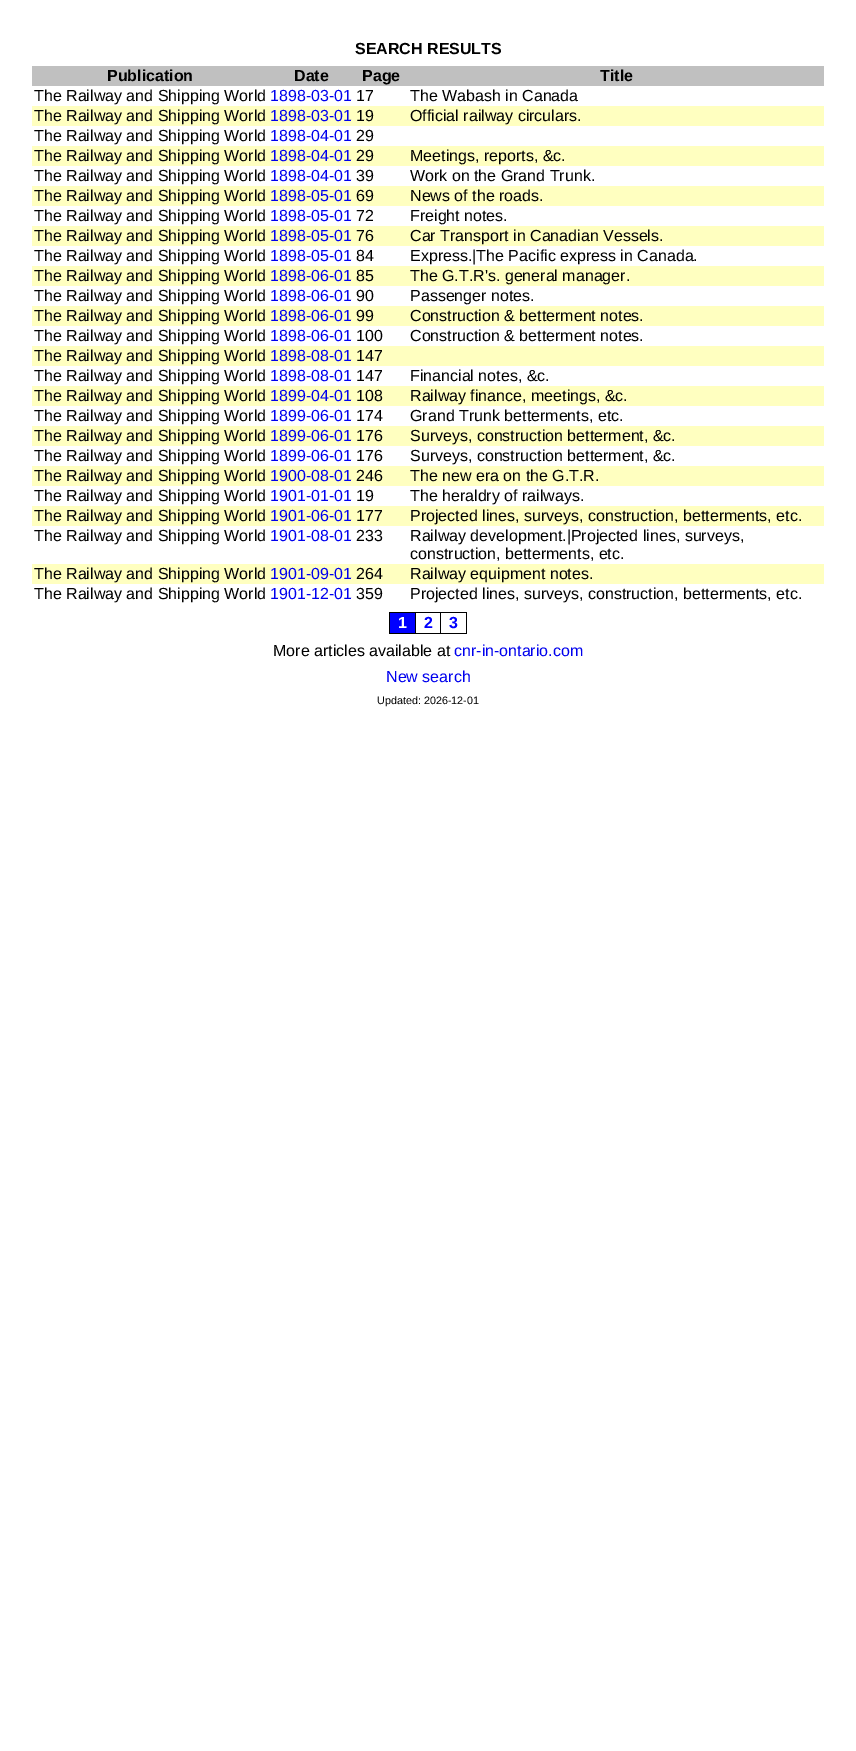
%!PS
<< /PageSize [856 1751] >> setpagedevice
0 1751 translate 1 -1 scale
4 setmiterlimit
1 setgray
0 0 856 1751 rectfill
/LiberationSans-Bold [16 0 0 -16 0 0] selectfont
0 setgray
355 54 moveto (SEARCH RESULTS) show
0.753 setgray
32 66 792 20 rectfill
0 setgray
107 81 moveto (Publication) show
294 81 moveto (Date) show
362 81 moveto (Page) show
600 81 moveto (Title) show
/LiberationSans-Regular [16 0 0 -16 0 0] selectfont
34 101 moveto (The Railway and Shipping World) show
0 0 0.933 setrgbcolor
270 101 moveto (1898-03-01) show
0 setgray
356 101 moveto (17) show
410 101 moveto (The Wabash in Canada) show
1 1 0.753 setrgbcolor
32 106 792 20 rectfill
0 setgray
34 121 moveto (The Railway and Shipping World) show
0 0 0.933 setrgbcolor
270 121 moveto (1898-03-01) show
0 setgray
356 121 moveto (19) show
410 121 moveto (Official railway circulars.) show
34 141 moveto (The Railway and Shipping World) show
0 0 0.933 setrgbcolor
270 141 moveto (1898-04-01) show
0 setgray
356 141 moveto (29) show
1 1 0.753 setrgbcolor
32 146 792 20 rectfill
0 setgray
34 161 moveto (The Railway and Shipping World) show
0 0 0.933 setrgbcolor
270 161 moveto (1898-04-01) show
0 setgray
356 161 moveto (29) show
410 161 moveto (Meetings, reports, &c.) show
34 181 moveto (The Railway and Shipping World) show
0 0 0.933 setrgbcolor
270 181 moveto (1898-04-01) show
0 setgray
356 181 moveto (39) show
410 181 moveto (Work on the Grand Trunk.) show
1 1 0.753 setrgbcolor
32 186 792 20 rectfill
0 setgray
34 201 moveto (The Railway and Shipping World) show
0 0 0.933 setrgbcolor
270 201 moveto (1898-05-01) show
0 setgray
356 201 moveto (69) show
410 201 moveto (News of the roads.) show
34 221 moveto (The Railway and Shipping World) show
0 0 0.933 setrgbcolor
270 221 moveto (1898-05-01) show
0 setgray
356 221 moveto (72) show
410 221 moveto (Freight notes.) show
1 1 0.753 setrgbcolor
32 226 792 20 rectfill
0 setgray
34 241 moveto (The Railway and Shipping World) show
0 0 0.933 setrgbcolor
270 241 moveto (1898-05-01) show
0 setgray
356 241 moveto (76) show
410 241 moveto (Car Transport in Canadian Vessels.) show
34 261 moveto (The Railway and Shipping World) show
0 0 0.933 setrgbcolor
270 261 moveto (1898-05-01) show
0 setgray
356 261 moveto (84) show
410 261 moveto (Express.|The Pacific express in Canada.) show
1 1 0.753 setrgbcolor
32 266 792 20 rectfill
0 setgray
34 281 moveto (The Railway and Shipping World) show
0 0 0.933 setrgbcolor
270 281 moveto (1898-06-01) show
0 setgray
356 281 moveto (85) show
410 281 moveto (The G.T.R's. general manager.) show
34 301 moveto (The Railway and Shipping World) show
0 0 0.933 setrgbcolor
270 301 moveto (1898-06-01) show
0 setgray
356 301 moveto (90) show
410 301 moveto (Passenger notes.) show
1 1 0.753 setrgbcolor
32 306 792 20 rectfill
0 setgray
34 321 moveto (The Railway and Shipping World) show
0 0 0.933 setrgbcolor
270 321 moveto (1898-06-01) show
0 setgray
356 321 moveto (99) show
410 321 moveto (Construction & betterment notes.) show
34 341 moveto (The Railway and Shipping World) show
0 0 0.933 setrgbcolor
270 341 moveto (1898-06-01) show
0 setgray
356 341 moveto (100) show
410 341 moveto (Construction & betterment notes.) show
1 1 0.753 setrgbcolor
32 346 792 20 rectfill
0 setgray
34 361 moveto (The Railway and Shipping World) show
0 0 0.933 setrgbcolor
270 361 moveto (1898-08-01) show
0 setgray
356 361 moveto (147) show
34 381 moveto (The Railway and Shipping World) show
0 0 0.933 setrgbcolor
270 381 moveto (1898-08-01) show
0 setgray
356 381 moveto (147) show
410 381 moveto (Financial notes, &c.) show
1 1 0.753 setrgbcolor
32 386 792 20 rectfill
0 setgray
34 401 moveto (The Railway and Shipping World) show
0 0 0.933 setrgbcolor
270 401 moveto (1899-04-01) show
0 setgray
356 401 moveto (108) show
410 401 moveto (Railway finance, meetings, &c.) show
34 421 moveto (The Railway and Shipping World) show
0 0 0.933 setrgbcolor
270 421 moveto (1899-06-01) show
0 setgray
356 421 moveto (174) show
410 421 moveto (Grand Trunk betterments, etc.) show
1 1 0.753 setrgbcolor
32 426 792 20 rectfill
0 setgray
34 441 moveto (The Railway and Shipping World) show
0 0 0.933 setrgbcolor
270 441 moveto (1899-06-01) show
0 setgray
356 441 moveto (176) show
410 441 moveto (Surveys, construction betterment, &c.) show
34 461 moveto (The Railway and Shipping World) show
0 0 0.933 setrgbcolor
270 461 moveto (1899-06-01) show
0 setgray
356 461 moveto (176) show
410 461 moveto (Surveys, construction betterment, &c.) show
1 1 0.753 setrgbcolor
32 466 792 20 rectfill
0 setgray
34 481 moveto (The Railway and Shipping World) show
0 0 0.933 setrgbcolor
270 481 moveto (1900-08-01) show
0 setgray
356 481 moveto (246) show
410 481 moveto (The new era on the G.T.R.) show
34 501 moveto (The Railway and Shipping World) show
0 0 0.933 setrgbcolor
270 501 moveto (1901-01-01) show
0 setgray
356 501 moveto (19) show
410 501 moveto (The heraldry of railways.) show
1 1 0.753 setrgbcolor
32 506 792 20 rectfill
0 setgray
34 521 moveto (The Railway and Shipping World) show
0 0 0.933 setrgbcolor
270 521 moveto (1901-06-01) show
0 setgray
356 521 moveto (177) show
410 521 moveto (Projected lines, surveys, construction, betterments, etc.) show
34 541 moveto (The Railway and Shipping World) show
0 0 0.933 setrgbcolor
270 541 moveto (1901-08-01) show
0 setgray
356 541 moveto (233) show
410 541 moveto (Railway development.|Projected lines, surveys,) show
410 559 moveto (construction, betterments, etc.) show
1 1 0.753 setrgbcolor
32 564 792 20 rectfill
0 setgray
34 579 moveto (The Railway and Shipping World) show
0 0 0.933 setrgbcolor
270 579 moveto (1901-09-01) show
0 setgray
356 579 moveto (264) show
410 579 moveto (Railway equipment notes.) show
34 599 moveto (The Railway and Shipping World) show
0 0 0.933 setrgbcolor
270 599 moveto (1901-12-01) show
0 setgray
356 599 moveto (359) show
410 599 moveto (Projected lines, surveys, construction, betterments, etc.) show
389 612 78 1 rectfill
466 612 1 22 rectfill
389 633 78 1 rectfill
389 612 1 22 rectfill
0 0 1 setrgbcolor
390 613 25 20 rectfill
/LiberationSans-Bold [16 0 0 -16 0 0] selectfont
1 setgray
398 628 moveto (1) show
0 setgray
415 612 1 22 rectfill
0 0 1 setrgbcolor
424 628 moveto (2) show
0 setgray
440 612 1 22 rectfill
0 0 1 setrgbcolor
449 628 moveto (3) show
/LiberationSans-Regular [16 0 0 -16 0 0] selectfont
0 setgray
273 656 moveto (More articles available at) show
0 0 0.933 setrgbcolor
454 656 moveto (cnr-in-ontario.com) show
386 682 moveto (New search) show
/LiberationSans-Regular [10.75 0 0 -10.75 0 0] selectfont
0 setgray
377 704 moveto (Updated: 2026-12-01) show
showpage
